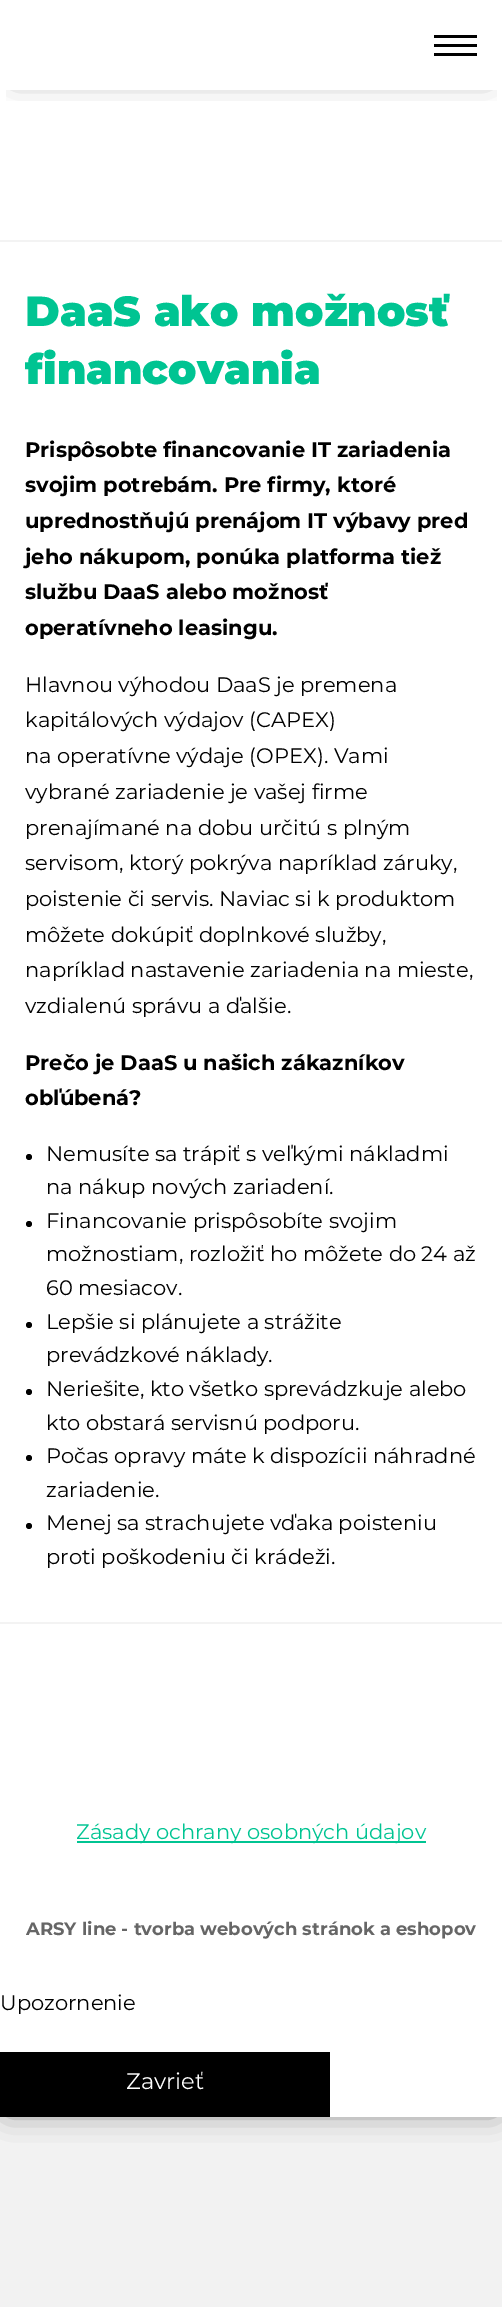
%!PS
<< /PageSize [502 2307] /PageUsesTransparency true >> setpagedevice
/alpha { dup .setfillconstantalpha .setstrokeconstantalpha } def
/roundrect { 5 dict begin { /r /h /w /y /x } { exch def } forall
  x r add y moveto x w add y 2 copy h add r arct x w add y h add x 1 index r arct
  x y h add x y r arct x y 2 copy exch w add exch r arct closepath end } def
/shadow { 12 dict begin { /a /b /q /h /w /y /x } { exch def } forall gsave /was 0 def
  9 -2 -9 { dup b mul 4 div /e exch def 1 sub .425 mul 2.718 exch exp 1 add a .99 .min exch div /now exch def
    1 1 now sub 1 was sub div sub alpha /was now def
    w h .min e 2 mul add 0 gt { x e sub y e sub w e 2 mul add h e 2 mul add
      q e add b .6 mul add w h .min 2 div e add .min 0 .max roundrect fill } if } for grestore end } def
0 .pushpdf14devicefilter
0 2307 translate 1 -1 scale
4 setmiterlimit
0.949 setgray
0 0 502 2307 rectfill
0 setgray
8 8 487 2101 0 15 0.6 shadow
1 setgray
0 0 502 2117 rectfill
gsave
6 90 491 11 rectclip
0 setgray
15 15 473 60 0 15 0.5 shadow
grestore
0 setgray
434 44 43 3 rectfill
434 35 43 3 rectfill
434 53 43 3 rectfill
0.953 setgray
0 240 502 2 rectfill
/Montserrat-Black [42 0 0 -42 0 0] selectfont
0 0.769 0.573 setrgbcolor
25 326 moveto (DaaS ako možnosť) show
25 384 moveto (financovania) show
/Montserrat-Bold [21 0 0 -21 0 0] selectfont
0 setgray
25 457 moveto (Prispôsobte financovanie IT zariadenia) show
25 492 moveto (svojim potrebám. Pre firmy, ktoré) show
25 528 moveto (uprednostňujú prenájom IT výbavy pred) show
25 564 moveto (jeho nákupom, ponúka platforma tiež) show
25 599 moveto (službu DaaS alebo možnosť) show
25 635 moveto (operatívneho leasingu.) show
/Montserrat-Regular [21 0 0 -21 0 0] selectfont
25 692 moveto (Hlavnou výhodou DaaS je premena) show
25 727 moveto (kapitálových výdajov \(CAPEX\)) show
25 763 moveto (na operatívne výdaje \(OPEX\). Vami) show
25 799 moveto (vybrané zariadenie je vašej firme) show
25 835 moveto (prenajímané na dobu určitú s plným) show
25 870 moveto (servisom, ktorý pokrýva napríklad záruky,) show
25 906 moveto (poistenie či servis. Naviac si k produktom) show
25 942 moveto (môžete dokúpiť doplnkové služby,) show
25 977 moveto (napríklad nastavenie zariadenia na mieste,) show
25 1013 moveto (vzdialenú správu a ďalšie.) show
/Montserrat-Bold [21 0 0 -21 0 0] selectfont
25 1070 moveto (Prečo je DaaS u našich zákazníkov) show
25 1105 moveto (obľúbená?) show
newpath 29 1157 3 0 360 arc closepath fill
/Montserrat-Regular [21 0 0 -21 0 0] selectfont
46 1161 moveto (Nemusíte sa trápiť s veľkými nákladmi) show
46 1194 moveto (na nákup nových zariadení.) show
newpath 29 1224 3 0 360 arc closepath fill
46 1228 moveto (Financovanie prispôsobíte svojim) show
46 1261 moveto (možnostiam, rozložiť ho môžete do 24 až) show
46 1295 moveto (60 mesiacov.) show
newpath 29 1325 3 0 360 arc closepath fill
46 1329 moveto (Lepšie si plánujete a strážite) show
46 1362 moveto (prevádzkové náklady.) show
newpath 29 1392 3 0 360 arc closepath fill
46 1396 moveto (Neriešite, kto všetko sprevádzkuje alebo) show
46 1430 moveto (kto obstará servisnú podporu.) show
newpath 29 1458 3 0 360 arc closepath fill
46 1463 moveto (Počas opravy máte k dispozícii náhradné) show
46 1497 moveto (zariadenie.) show
newpath 29 1526 3 0 360 arc closepath fill
46 1530 moveto (Menej sa strachujete vďaka poisteniu) show
46 1564 moveto (proti poškodeniu či krádeži.) show
0.953 setgray
0 1622 502 2 rectfill
0 0.769 0.573 setrgbcolor
77 1841 349 2 rectfill
76 1839 moveto (Zásady ochrany osobných údajov) show
/Montserrat-Bold [18 0 0 -18 0 0] selectfont
0.4 setgray
26 1935 moveto (ARSY line - tvorba webových stránok a eshopov) show
/Montserrat-Regular [21 0 0 -21 0 0] selectfont
0 setgray
0 2010 moveto (Upozornenie) show
0 2052 330 65 rectfill
/Montserrat-Regular [22.5 0 0 -22.5 0 0] selectfont
1 setgray
126 2089 moveto (Zavrieť) show
.poppdf14devicefilter showpage
